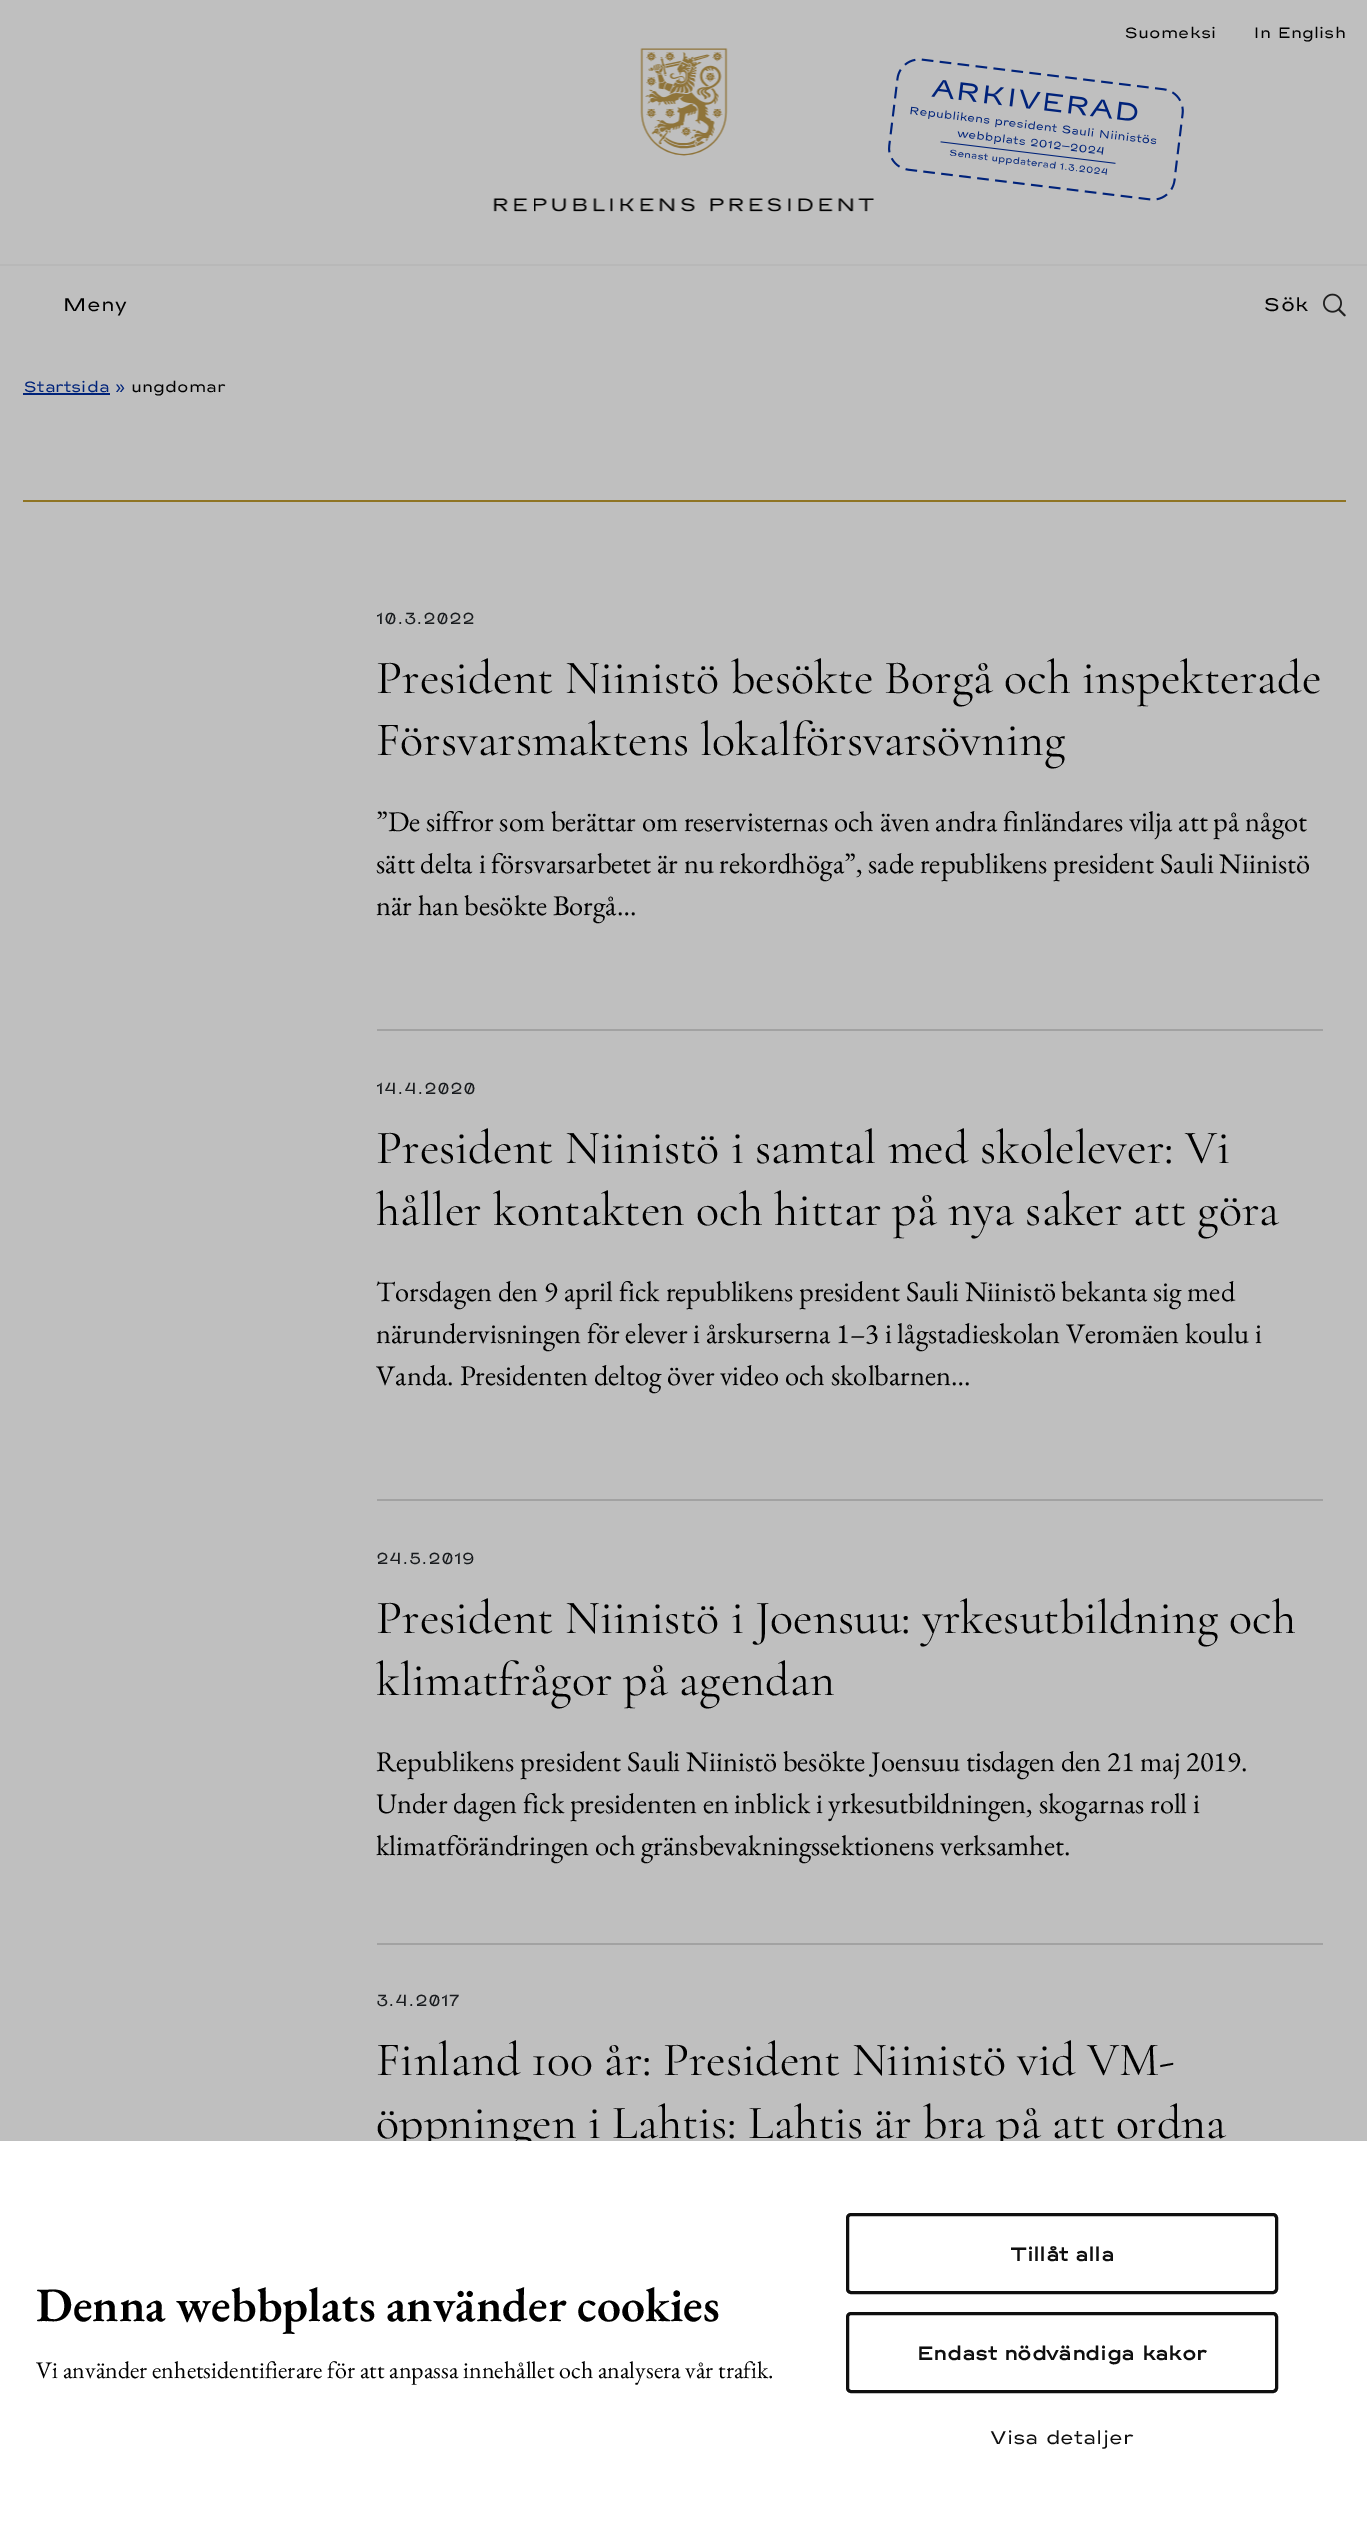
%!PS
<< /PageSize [1367 2533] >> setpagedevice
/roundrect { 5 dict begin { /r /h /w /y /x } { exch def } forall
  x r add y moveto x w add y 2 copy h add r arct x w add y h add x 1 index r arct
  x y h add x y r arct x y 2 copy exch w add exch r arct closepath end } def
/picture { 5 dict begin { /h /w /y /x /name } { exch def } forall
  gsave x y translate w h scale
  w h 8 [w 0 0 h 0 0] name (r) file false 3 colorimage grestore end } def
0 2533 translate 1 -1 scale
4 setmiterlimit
0.749 setgray
0 0 1367 2533 rectfill
/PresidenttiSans-Regular [19.5 0 0 -19.5 0 0] selectfont
0 setgray
1124 38 moveto (Suomeksi) show
1253 38 moveto (In English) show
0.722 setgray
0 264 1367 2 rectfill
(img1.rgb) 493 48 382 164 picture
(img2.rgb) 888 58 296 143 picture
/PresidenttiSans-Regular [24 0 0 -24 0 0] selectfont
0 setgray
62 311 moveto (Meny) show
1263 311 moveto (Sök) show
(img3.rgb) 1323 293 23 24 picture
/PresidenttiSans-Regular [19.5 0 0 -19.5 0 0] selectfont
0 0.137 0.478 setrgbcolor
23 392 moveto (Startsida ») show
23 393 87 2 rectfill
0 setgray
131 392 moveto (ungdomar) show
0.561 0.455 0.141 setrgbcolor
23 500 1323 2 rectfill
0.635 setgray
377 1029 946 2 rectfill
/PresidenttiSans-Regular [21 0 0 -21 0 0] selectfont
0.098 0.11 0.122 setrgbcolor
376 624 moveto (10.3.2022) show
/CormorantGaramond-Regular [48 0 0 -48 0 0] selectfont
0 setgray
376 693 moveto (President Niinistö besökte Borgå och inspekterade) show
376 755 moveto (Försvarsmaktens lokalförsvarsövning) show
/EBGaramond-Regular [28.5 0 0 -28.5 0 0] selectfont
376 831 moveto (”De siffror som berättar om reservisternas och även andra finländares vilja att på något) show
376 873 moveto (sätt delta i försvarsarbetet är nu rekordhöga”, sade republikens president Sauli Niinistö) show
376 915 moveto (när han besökte Borgå…) show
0.635 setgray
377 1499 946 2 rectfill
/PresidenttiSans-Regular [21 0 0 -21 0 0] selectfont
0.098 0.11 0.122 setrgbcolor
376 1094 moveto (14.4.2020) show
/CormorantGaramond-Regular [48 0 0 -48 0 0] selectfont
0 setgray
376 1163 moveto (President Niinistö i samtal med skolelever: Vi) show
376 1225 moveto (håller kontakten och hittar på nya saker att göra) show
/EBGaramond-Regular [28.5 0 0 -28.5 0 0] selectfont
376 1301 moveto (Torsdagen den 9 april fick republikens president Sauli Niinistö bekanta sig med) show
376 1343 moveto (närundervisningen för elever i årskurserna 1–3 i lågstadieskolan Veromäen koulu i) show
376 1385 moveto (Vanda. Presidenten deltog över video och skolbarnen…) show
0.635 setgray
377 1943 946 2 rectfill
/PresidenttiSans-Regular [21 0 0 -21 0 0] selectfont
0.098 0.11 0.122 setrgbcolor
376 1564 moveto (24.5.2019) show
/CormorantGaramond-Regular [48 0 0 -48 0 0] selectfont
0 setgray
376 1633 moveto (President Niinistö i Joensuu: yrkesutbildning och) show
376 1695 moveto (klimatfrågor på agendan) show
/EBGaramond-Regular [28.5 0 0 -28.5 0 0] selectfont
376 1771 moveto (Republikens president Sauli Niinistö besökte Joensuu tisdagen den 21 maj 2019.) show
376 1813 moveto (Under dagen fick presidenten en inblick i yrkesutbildningen, skogarnas roll i) show
376 1855 moveto (klimatförändringen och gränsbevakningssektionens verksamhet.) show
/PresidenttiSans-Regular [21 0 0 -21 0 0] selectfont
0.098 0.11 0.122 setrgbcolor
376 2006 moveto (3.4.2017) show
/CormorantGaramond-Regular [48 0 0 -48 0 0] selectfont
0 setgray
376 2075 moveto (Finland 100 år: President Niinistö vid VM-) show
376 2138 moveto (öppningen i Lahtis: Lahtis är bra på att ordna) show
1 setgray
0 2141 1367 392 rectfill
/EBGaramond-SemiBold [48 0 0 -48 0 0] selectfont
0 setgray
36 2321 moveto (Denna webbplats använder cookies) show
/EBGaramond-Regular [24 0 0 -24 0 0] selectfont
36 2378 moveto (Vi använder enhetsidentifierare för att anpassa innehållet och analysera vår trafik.) show
0.059 setgray
3 setlinewidth
847.5 2214.5 429 78 3.5 roundrect stroke
/PresidenttiSans-Bold [24 0 0 -24 0 0] selectfont
1010 2261 moveto (Tillåt alla) show
847.5 2313.5 429 78 3.5 roundrect stroke
916 2360 moveto (Endast nödvändiga kakor) show
/PresidenttiSans-Regular [24 0 0 -24 0 0] selectfont
990 2444 moveto (Visa detaljer) show
showpage
